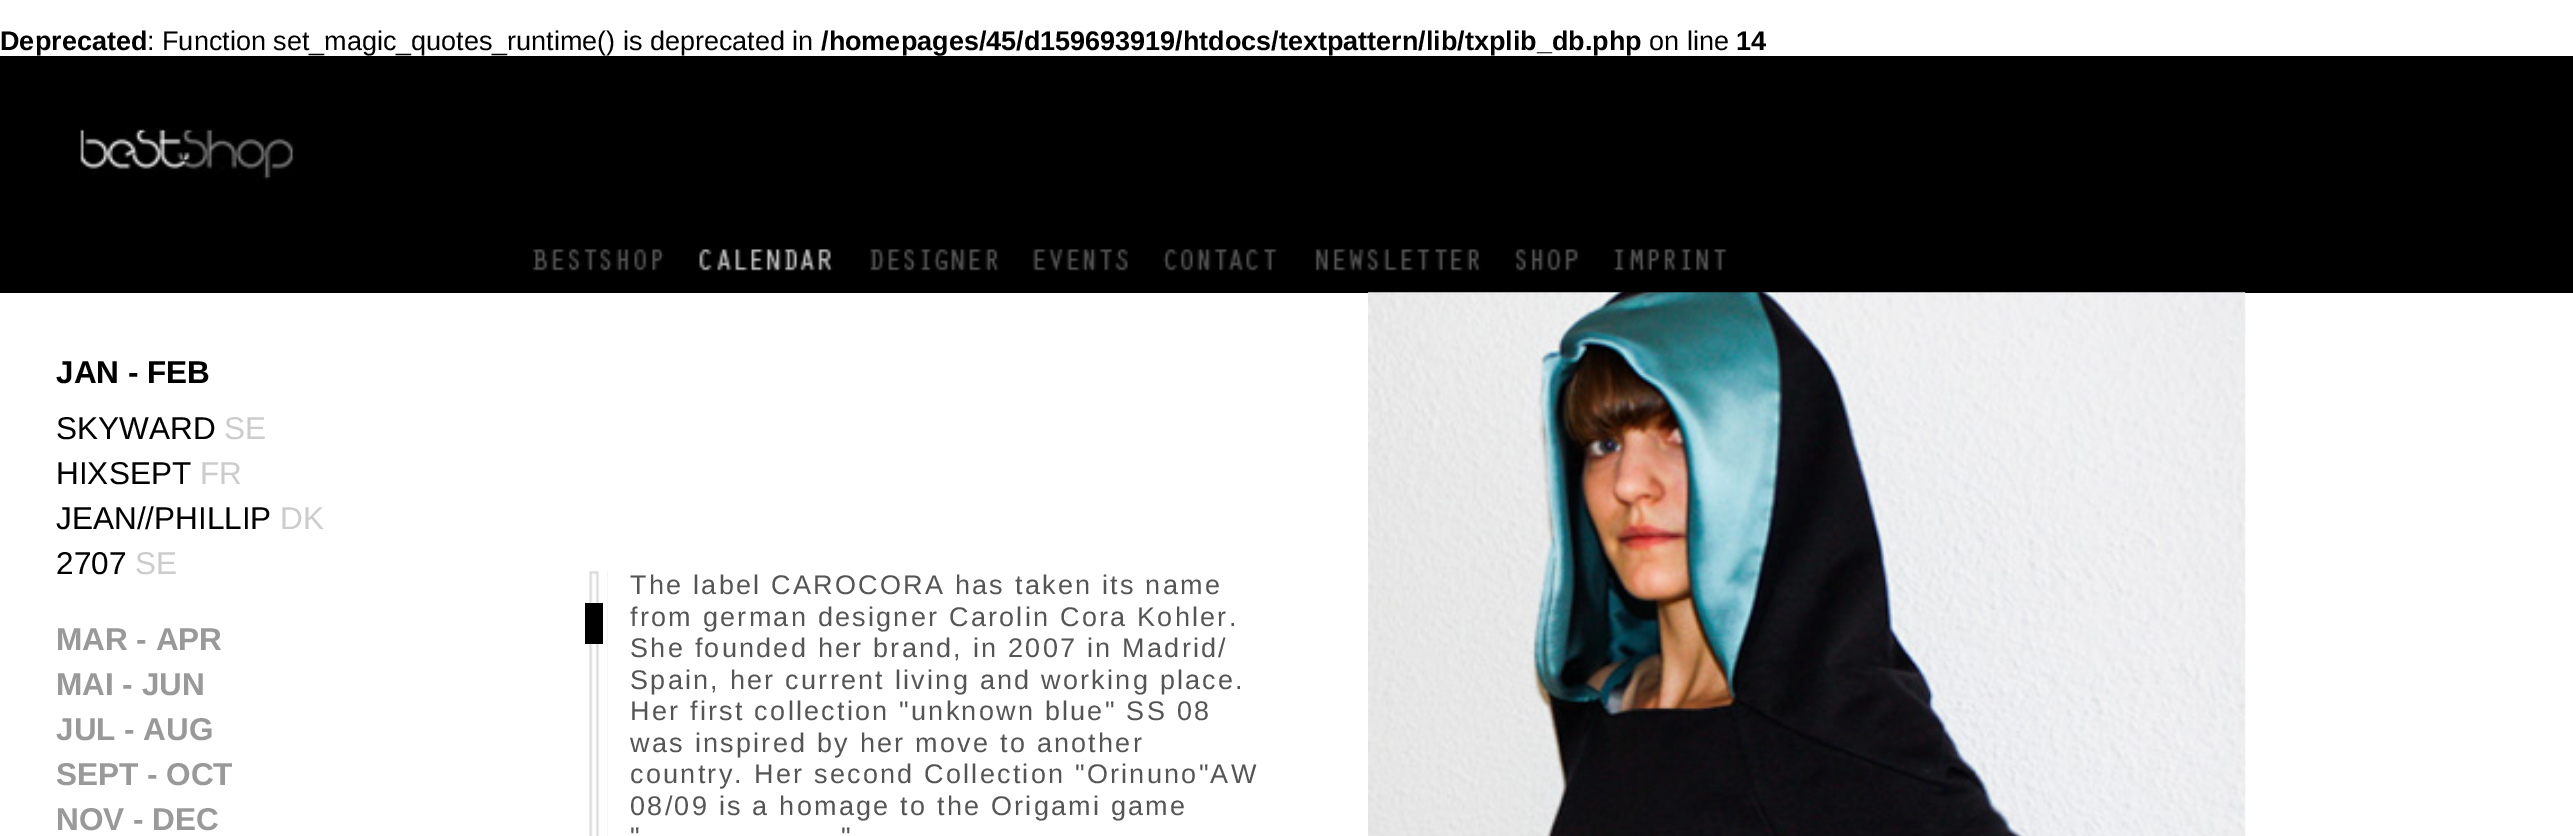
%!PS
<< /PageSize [2573 836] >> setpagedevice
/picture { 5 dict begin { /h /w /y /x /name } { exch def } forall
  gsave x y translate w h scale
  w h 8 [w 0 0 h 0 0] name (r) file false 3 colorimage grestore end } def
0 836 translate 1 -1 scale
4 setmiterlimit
1 setgray
0 0 2573 836 rectfill
/LiberationSans-Bold [27 0 0 -27 0 0] selectfont
0 setgray
0 50 moveto (Deprecated) show
/LiberationSans-Regular [27 0 0 -27 0 0] selectfont
147 50 moveto (: Function set_magic_quotes_runtime\(\) is deprecated in) show
/LiberationSans-Bold [27 0 0 -27 0 0] selectfont
821 50 moveto (/homepages/45/d159693919/htdocs/textpattern/lib/txplib_db.php) show
/LiberationSans-Regular [27 0 0 -27 0 0] selectfont
1649 50 moveto (on line) show
/LiberationSans-Bold [27 0 0 -27 0 0] selectfont
1736 50 moveto (14) show
0 56 2573 237 rectfill
(img1.rgb) 79 128 216 52 picture
(img2.rgb) 532 249 132 22 picture
(img3.rgb) 699 249 134 22 picture
(img4.rgb) 870 249 129 22 picture
(img5.rgb) 1032 249 96 22 picture
(img6.rgb) 1163 249 114 22 picture
(img7.rgb) 1315 249 166 22 picture
(img8.rgb) 1514 249 64 22 picture
(img9.rgb) 1613 249 114 22 picture
/LiberationSans-Bold [31.5 0 0 -31.5 0 0] selectfont
56 383 moveto (JAN - FEB) show
/LiberationSans-Regular [31.5 0 0 -31.5 0 0] selectfont
56 439 moveto (SKYWARD) show
0.8 setgray
224 439 moveto (SE) show
0 setgray
56 484 moveto (HIXSEPT) show
0.8 setgray
200 484 moveto (FR) show
0 setgray
56 529 moveto (JEAN//PHILLIP) show
0.8 setgray
280 529 moveto (DK) show
0 setgray
56 574 moveto (2707) show
0.8 setgray
135 574 moveto (SE) show
/LiberationSans-Bold [31.5 0 0 -31.5 0 0] selectfont
0.6 setgray
56 650 moveto (MAR - APR) show
56 695 moveto (MAI - JUN) show
56 740 moveto (JUL - AUG) show
56 785 moveto (SEPT - OCT) show
56 830 moveto (NOV - DEC) show
(img10.rgb) 589 570 19 266 picture
0 setgray
585 603 18 41 rectfill
/LiberationSans-Regular [27 0 0 -27 0 0] selectfont
0.333 setgray
630 594 moveto 2.25 0 (The label CAROCORA has taken its name) ashow
630 626 moveto 2.25 0 (from german designer Carolin Cora Kohler.) ashow
630 657 moveto 2.25 0 (She founded her brand, in 2007 in Madrid/) ashow
630 689 moveto 2.25 0 (Spain, her current living and working place.) ashow
630 720 moveto 2.25 0 (Her first collection "unknown blue" SS 08) ashow
630 752 moveto 2.25 0 (was inspired by her move to another) ashow
630 783 moveto 2.25 0 (country. Her second Collection "Orinuno"AW) ashow
630 815 moveto 2.25 0 (08/09 is a homage to the Origami game) ashow
630 846 moveto 2.25 0 (") ashow
841 846 moveto 2.25 0 (") ashow
(img11.rgb) 1368 292 878 544 picture
showpage
